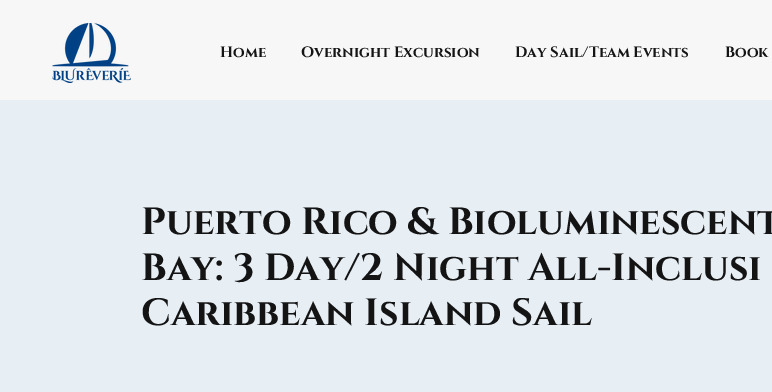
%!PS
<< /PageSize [772 392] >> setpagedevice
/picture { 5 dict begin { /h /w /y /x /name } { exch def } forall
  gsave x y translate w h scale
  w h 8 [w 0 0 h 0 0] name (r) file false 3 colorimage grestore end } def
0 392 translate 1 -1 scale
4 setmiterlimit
0.969 setgray
0 0 772 392 rectfill
(img1.rgb) 52 23 79 60 picture
/Cinzel-Bold [15 0 0 -15 0 0] selectfont
0.078 setgray
220 57 moveto (Home) show
301 57 moveto (Overnight Excursion) show
515 57 moveto (Day Sail/Team Events) show
725 57 moveto (Book) show
0.906 0.937 0.961 setrgbcolor
0 100 772 292 rectfill
/Cinzel-Bold [38 0 0 -38 0 0] selectfont
0.078 setgray
141 234 moveto (Puerto Rico & Bioluminescent) show
141 280 moveto (Bay: 3 Day/2 Night All-Inclusi) show
141 325 moveto (Caribbean Island Sail) show
showpage
